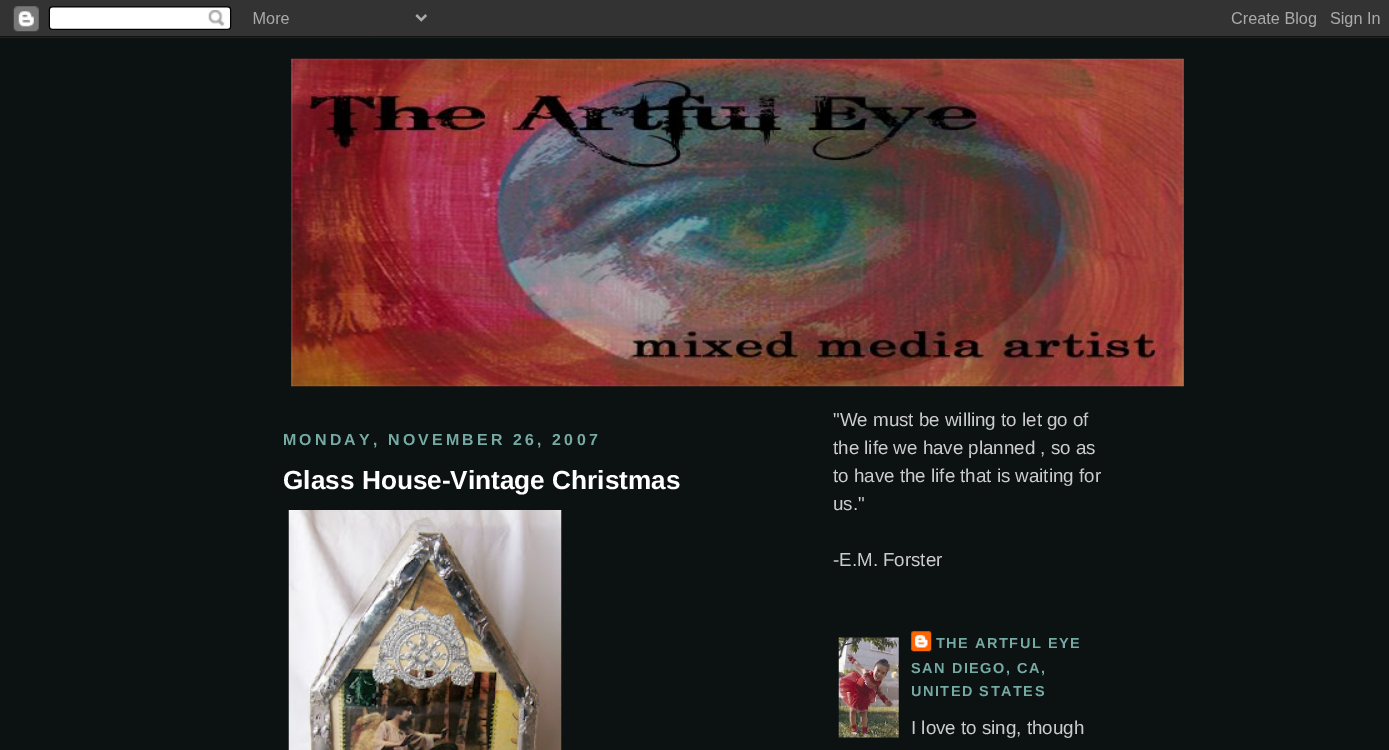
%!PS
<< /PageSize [1389 750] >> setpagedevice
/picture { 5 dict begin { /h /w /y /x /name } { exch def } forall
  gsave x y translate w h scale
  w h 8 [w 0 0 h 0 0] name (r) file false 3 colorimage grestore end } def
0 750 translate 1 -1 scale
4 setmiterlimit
0.047 0.067 0.067 setrgbcolor
0 0 1389 750 rectfill
(img1.rgb) 0 0 1389 38 picture
(img2.rgb) 291 58 893 329 picture
/LiberationSans-Bold [15.9 0 0 -15.9 0 0] selectfont
0.463 0.667 0.647 setrgbcolor
283 445 moveto 3.2 0 (MONDAY, NOVEMBER 26, 2007) ashow
/LiberationSans-Bold [26.2 0 0 -26.2 0 0] selectfont
1 setgray
283 489 moveto (Glass House-Vintage Christmas) show
(img3.rgb) 288 510 274 240 picture
/LiberationSans-Regular [18.75 0 0 -18.75 0 0] selectfont
0.8 setgray
833 426 moveto ("We must be willing to let go of) show
833 454 moveto (the life we have planned , so as) show
833 482 moveto (to have the life that is waiting for) show
833 510 moveto (us.") show
833 566 moveto (-E.M. Forster) show
(img4.rgb) 838 637 61 101 picture
(img5.rgb) 911 631 21 21 picture
/LiberationSans-Bold [14.5 0 0 -14.5 0 0] selectfont
0.463 0.667 0.647 setrgbcolor
936 648 moveto 1.5 0 (THE ARTFUL EYE) ashow
911 673 moveto 1.5 0 (SAN DIEGO, CA,) ashow
911 696 moveto 1.5 0 (UNITED STATES) ashow
/LiberationSans-Regular [18.75 0 0 -18.75 0 0] selectfont
0.8 setgray
911 734 moveto (I love to sing, though) show
showpage
